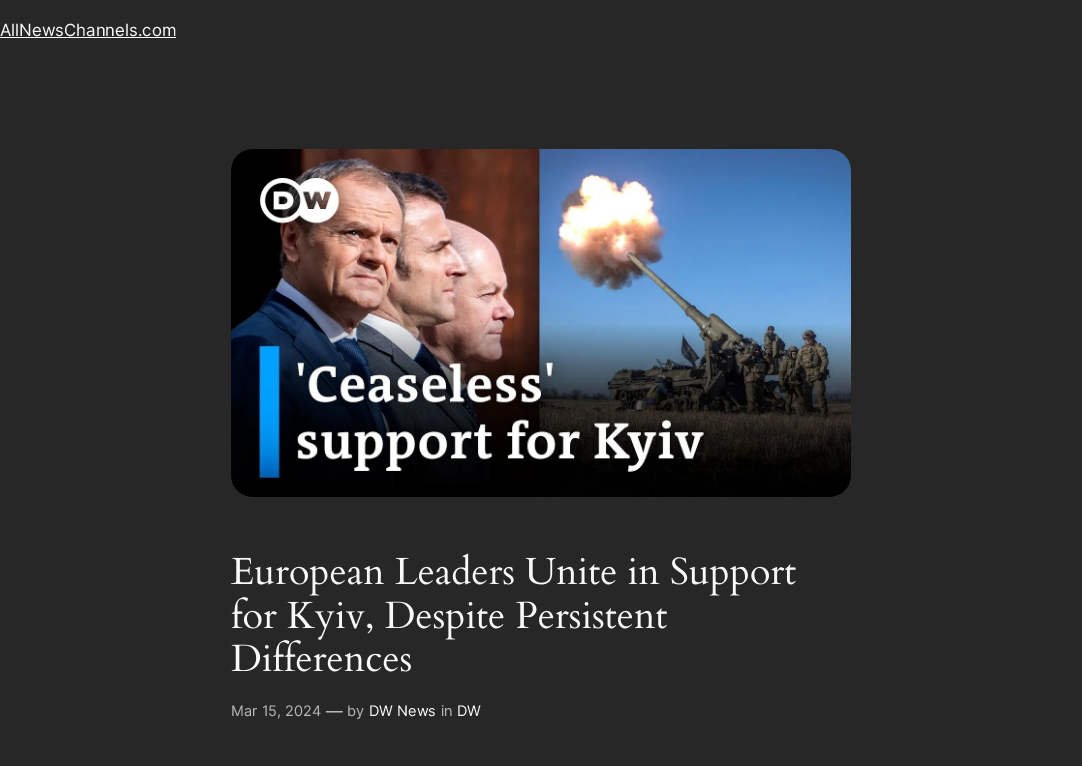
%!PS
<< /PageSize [1082 766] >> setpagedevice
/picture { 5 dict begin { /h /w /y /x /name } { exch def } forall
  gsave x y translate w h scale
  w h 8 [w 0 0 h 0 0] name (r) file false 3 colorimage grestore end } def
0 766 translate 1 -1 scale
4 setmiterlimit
0.153 setgray
0 0 1082 766 rectfill
/Inter-Regular [16.75 0 0 -16.75 0 0] selectfont
0.976 setgray
0 36 moveto (AllNewsChannels.com) show
0 37 176 1 rectfill
(img1.rgb) 231 149 620 348 picture
(img2.rgb) 231 553 565 43 picture
(img3.rgb) 231 597 436 43 picture
(img4.rgb) 231 640 180 32 picture
/Inter-Regular [14.5 0 0 -14.5 0 0] selectfont
0.718 setgray
231 716 moveto (Mar 15, 2024) show
/Inter-Regular [16.75 0 0 -16.75 0 0] selectfont
326 717 moveto (—) show
/Inter-Regular [14.5 0 0 -14.5 0 0] selectfont
347 716 moveto (by) show
0.976 setgray
369 716 moveto (DW News) show
0.718 setgray
441 716 moveto (in) show
0.976 setgray
457 716 moveto (DW) show
showpage
